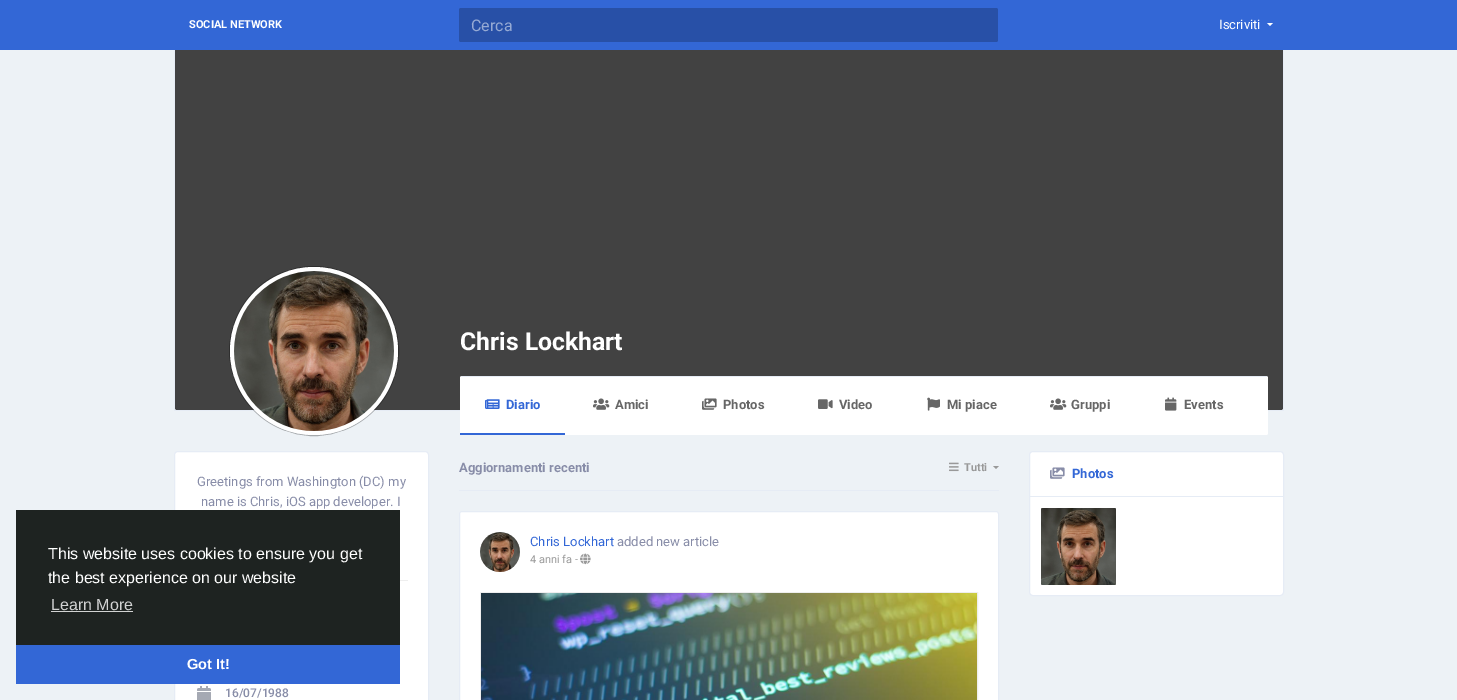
%!PS
<< /PageSize [1457 700] /PageUsesTransparency true >> setpagedevice
/alpha { dup .setfillconstantalpha .setstrokeconstantalpha } def
/roundrect { 5 dict begin { /r /h /w /y /x } { exch def } forall
  x r add y moveto x w add y 2 copy h add r arct x w add y h add x 1 index r arct
  x y h add x y r arct x y 2 copy exch w add exch r arct closepath end } def
/picture { 5 dict begin { /h /w /y /x /name } { exch def } forall
  gsave x y translate w h scale
  w h 8 [w 0 0 h 0 0] name (r) file false 3 colorimage grestore end } def
0 .pushpdf14devicefilter
0 700 translate 1 -1 scale
4 setmiterlimit
0.929 0.949 0.965 setrgbcolor
0 0 1457 700 rectfill
0.2 0.404 0.839 setrgbcolor
0 0 1457 50 rectfill
/Roboto-Bold [11 0 0 -11 0 0] selectfont
1 setgray
189 28 moveto (SOCIAL NETWORK) show
0.157 0.314 0.655 setrgbcolor
459 8 539 34 2 roundrect fill
/Roboto-Regular [16 0 0 -16 0 0] selectfont
0.588 0.667 0.831 setrgbcolor
471 31 moveto (Cerca) show
/Roboto-Regular [13 0 0 -13 0 0] selectfont
1 setgray
1219 29 moveto (Iscriviti) show
newpath 1267 23 moveto 1273 23 lineto 1270 26 lineto closepath fill
0.902 0.925 0.961 setrgbcolor
1283 50 1 361 rectfill
174 410 1110 1 rectfill
174 50 1 361 rectfill
0.259 setgray
newpath 175 50 moveto 1283 50 lineto 1283 408 lineto 1283 409 1282 410 1281 410 curveto 177 410 lineto 176 410 175 409 175 408 curveto closepath fill
0.3 alpha
0 setgray
newpath 314 351 84.5 0 360 arc closepath stroke
1 alpha
1 setgray
newpath 314 351 84 0 360 arc closepath fill
(img1.rgb) 234 271 160 160 picture
/Roboto-Bold [24.75 0 0 -24.75 0 0] selectfont
460 350 moveto (Chris Lockhart) show
460 376 808 59 2 roundrect fill
0.902 0.925 0.961 setrgbcolor
461 376 806 1 rectfill
0.2 0.404 0.839 setrgbcolor
460 433 105 2 rectfill
(img2.rgb) 485 399 15 10 picture
/Roboto-Bold [13 0 0 -13 0 0] selectfont
506 409 moveto (Diario) show
(img3.rgb) 593 398 17 12 picture
0.4 setgray
615 409 moveto (Amici) show
(img4.rgb) 702 398 15 12 picture
723 409 moveto (Photos) show
(img5.rgb) 818 399 15 10 picture
839 409 moveto (Video) show
(img6.rgb) 927 397 13 14 picture
947 409 moveto (Mi piace) show
(img3.rgb) 1050 398 17 12 picture
1071 409 moveto (Gruppi) show
(img7.rgb) 1165 397 12 14 picture
1184 409 moveto (Events) show
0.902 0.925 0.961 setrgbcolor
459 490 540 1 rectfill
0.533 0.553 0.659 setrgbcolor
459 472 moveto (Aggiornamenti recenti) show
(img8.rgb) 949 462 10 10 picture
/Roboto-Bold [11 0 0 -11 0 0] selectfont
0.6 setgray
964 471 moveto (Tutti) show
newpath 993 466 moveto 999 466 lineto 996 469 lineto closepath fill
1 setgray
459.5 511.5 539 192 2.5 roundrect gsave fill grestore
0.902 0.925 0.961 setrgbcolor
stroke
0.933 setgray
newpath 500 552 20 0 360 arc closepath fill
(img9.rgb) 480 532 40 40 picture
/Roboto-Regular [13 0 0 -13 0 0] selectfont
0.2 0.404 0.839 setrgbcolor
530 546 moveto (Chris Lockhart) show
0.533 0.553 0.659 setrgbcolor
617 546 moveto (added new article) show
/Roboto-Regular [11 0 0 -11 0 0] selectfont
0.6 setgray
530 563 moveto (4 anni fa -) show
(img10.rgb) 580 553 11 12 picture
0.933 setgray
480.5 592.5 497 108 rectstroke
(img11.rgb) 481 593 496 107 picture
1 setgray
1029.5 451.5 254 144 3.5 roundrect gsave fill grestore
0.902 0.925 0.961 setrgbcolor
stroke
1030 496 253 1 rectfill
(img12.rgb) 1050 467 15 12 picture
/Roboto-Bold [13 0 0 -13 0 0] selectfont
0.2 0.404 0.839 setrgbcolor
1072 478 moveto (Photos) show
(img13.rgb) 1041 508 75 77 picture
1 setgray
174.5 451.5 254 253 3.5 roundrect gsave fill grestore
0.902 0.925 0.961 setrgbcolor
stroke
0.933 setgray
400 580 8 1 rectfill
/Roboto-Regular [13 0 0 -13 0 0] selectfont
0.533 0.553 0.659 setrgbcolor
197 486 moveto (Greetings from Washington \(DC\) my) show
201 506 moveto (name is Chris, iOS app developer. I) show
(img14.rgb) 197 686 14 14 picture
/Roboto-Medium [12 0 0 -12 0 0] selectfont
225 697 moveto (16/07/1988) show
0.118 0.137 0.129 setrgbcolor
16 510 384 135 rectfill
/LiberationSans-Regular [16 0 0 -16 0 0] selectfont
1 setgray
48 559 moveto (This website uses cookies to ensure you get) show
48 583 moveto (the best experience on our website) show
0.824 0.827 0.827 setrgbcolor
51 610 moveto (Learn More) show
51 611 82 1 rectfill
0.2 0.404 0.839 setrgbcolor
16 645 384 39 rectfill
/LiberationSans-Bold [14.5 0 0 -14.5 0 0] selectfont
1 setgray
187 669 moveto (Got It!) show
.poppdf14devicefilter showpage
